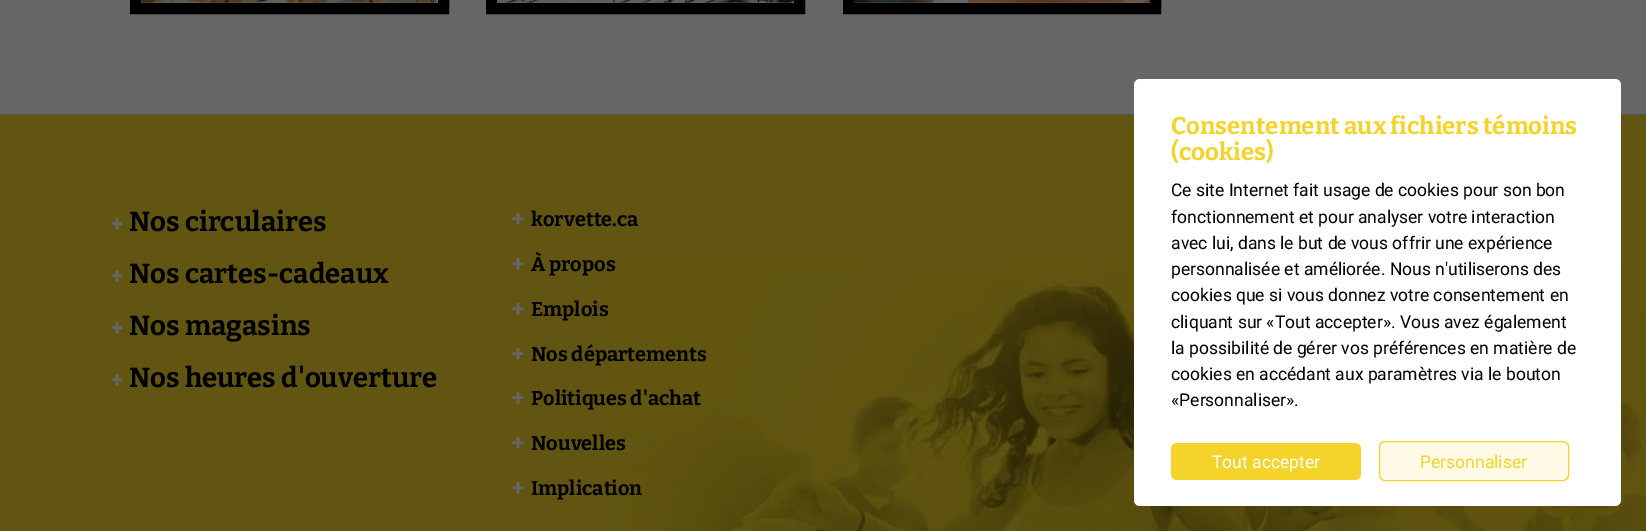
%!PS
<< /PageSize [1646 531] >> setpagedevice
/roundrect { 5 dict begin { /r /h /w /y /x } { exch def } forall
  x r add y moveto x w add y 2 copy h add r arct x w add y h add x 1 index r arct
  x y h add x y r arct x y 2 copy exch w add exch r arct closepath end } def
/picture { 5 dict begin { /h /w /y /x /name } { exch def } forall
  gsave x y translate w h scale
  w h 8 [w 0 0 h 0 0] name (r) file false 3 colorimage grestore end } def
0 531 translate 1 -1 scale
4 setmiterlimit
0.4 setgray
0 0 1646 531 rectfill
0.329 setgray
0 114 1646 1 rectfill
0 setgray
11 setlinewidth
135.5 -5.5 308 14 rectstroke
(img1.rgb) 141 0 297 3 picture
491.5 -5.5 308 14 rectstroke
(img2.rgb) 497 0 297 3 picture
848.5 -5.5 307 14 rectstroke
(img3.rgb) 853 0 297 3 picture
0.384 0.333 0.067 setrgbcolor
0 115 1646 416 rectfill
(img4.rgb) 604 261 1042 270 picture
/Roboto-Bold [22 0 0 -22 0 0] selectfont
0.4 setgray
111 231 moveto (+) show
/Bitter-Bold [27.5 0 0 -27.5 0 0] selectfont
0 setgray
129 231 moveto (Nos circulaires) show
/Roboto-Bold [22 0 0 -22 0 0] selectfont
0.4 setgray
111 283 moveto (+) show
/Bitter-Bold [27.5 0 0 -27.5 0 0] selectfont
0 setgray
129 283 moveto (Nos cartes-cadeaux) show
/Roboto-Bold [22 0 0 -22 0 0] selectfont
0.4 setgray
111 335 moveto (+) show
/Bitter-Bold [27.5 0 0 -27.5 0 0] selectfont
0 setgray
129 335 moveto (Nos magasins) show
/Roboto-Bold [22 0 0 -22 0 0] selectfont
0.4 setgray
111 387 moveto (+) show
/Bitter-Bold [27.5 0 0 -27.5 0 0] selectfont
0 setgray
129 387 moveto (Nos heures d'ouverture) show
/Roboto-Bold [22 0 0 -22 0 0] selectfont
0.4 setgray
512 226 moveto (+) show
/Bitter-Bold [20 0 0 -20 0 0] selectfont
0 setgray
531 226 moveto (korvette.ca) show
/Roboto-Bold [22 0 0 -22 0 0] selectfont
0.4 setgray
512 271 moveto (+) show
/Bitter-Bold [20 0 0 -20 0 0] selectfont
0 setgray
531 271 moveto (À propos) show
/Roboto-Bold [22 0 0 -22 0 0] selectfont
0.4 setgray
512 316 moveto (+) show
/Bitter-Bold [20 0 0 -20 0 0] selectfont
0 setgray
531 316 moveto (Emplois) show
/Roboto-Bold [22 0 0 -22 0 0] selectfont
0.4 setgray
512 361 moveto (+) show
/Bitter-Bold [20 0 0 -20 0 0] selectfont
0 setgray
531 361 moveto (Nos départements) show
/Roboto-Bold [22 0 0 -22 0 0] selectfont
0.4 setgray
512 405 moveto (+) show
/Bitter-Bold [20 0 0 -20 0 0] selectfont
0 setgray
531 405 moveto (Politiques d'achat) show
/Roboto-Bold [22 0 0 -22 0 0] selectfont
0.4 setgray
512 450 moveto (+) show
/Bitter-Bold [20 0 0 -20 0 0] selectfont
0 setgray
531 450 moveto (Nouvelles) show
/Roboto-Bold [22 0 0 -22 0 0] selectfont
0.4 setgray
512 495 moveto (+) show
/Bitter-Bold [20 0 0 -20 0 0] selectfont
0 setgray
531 495 moveto (Implication) show
1 setgray
1134 79 487 427 6 roundrect fill
/Bitter-Bold [24 0 0 -24 0 0] selectfont
0.957 0.831 0.169 setrgbcolor
1171 134 moveto (Consentement aux fichiers témoins) show
1171 160 moveto (\(cookies\)) show
/Roboto-Regular [17.5 0 0 -17.5 0 0] selectfont
0 setgray
1171 196 moveto (Ce site Internet fait usage de cookies pour son bon) show
1171 223 moveto (fonctionnement et pour analyser votre interaction) show
1171 249 moveto (avec lui, dans le but de vous offrir une expérience) show
1171 275 moveto (personnalisée et améliorée. Nous n'utiliserons des) show
1171 301 moveto (cookies que si vous donnez votre consentement en) show
1171 328 moveto (cliquant sur «Tout accepter». Vous avez également) show
1171 354 moveto (la possibilité de gérer vos préférences en matière de) show
1171 380 moveto (cookies en accédant aux paramètres via le bouton) show
1171 406 moveto («Personnaliser».) show
0.957 0.831 0.169 setrgbcolor
1171 443 190 37 6 roundrect fill
1 setgray
1212 468 moveto (Tout accepter) show
0.996 0.98 0.898 setrgbcolor
1379.5 441.5 189 39 5.5 roundrect gsave fill grestore
0.957 0.831 0.169 setrgbcolor
1 setlinewidth
stroke
1420 468 moveto (Personnaliser) show
showpage
